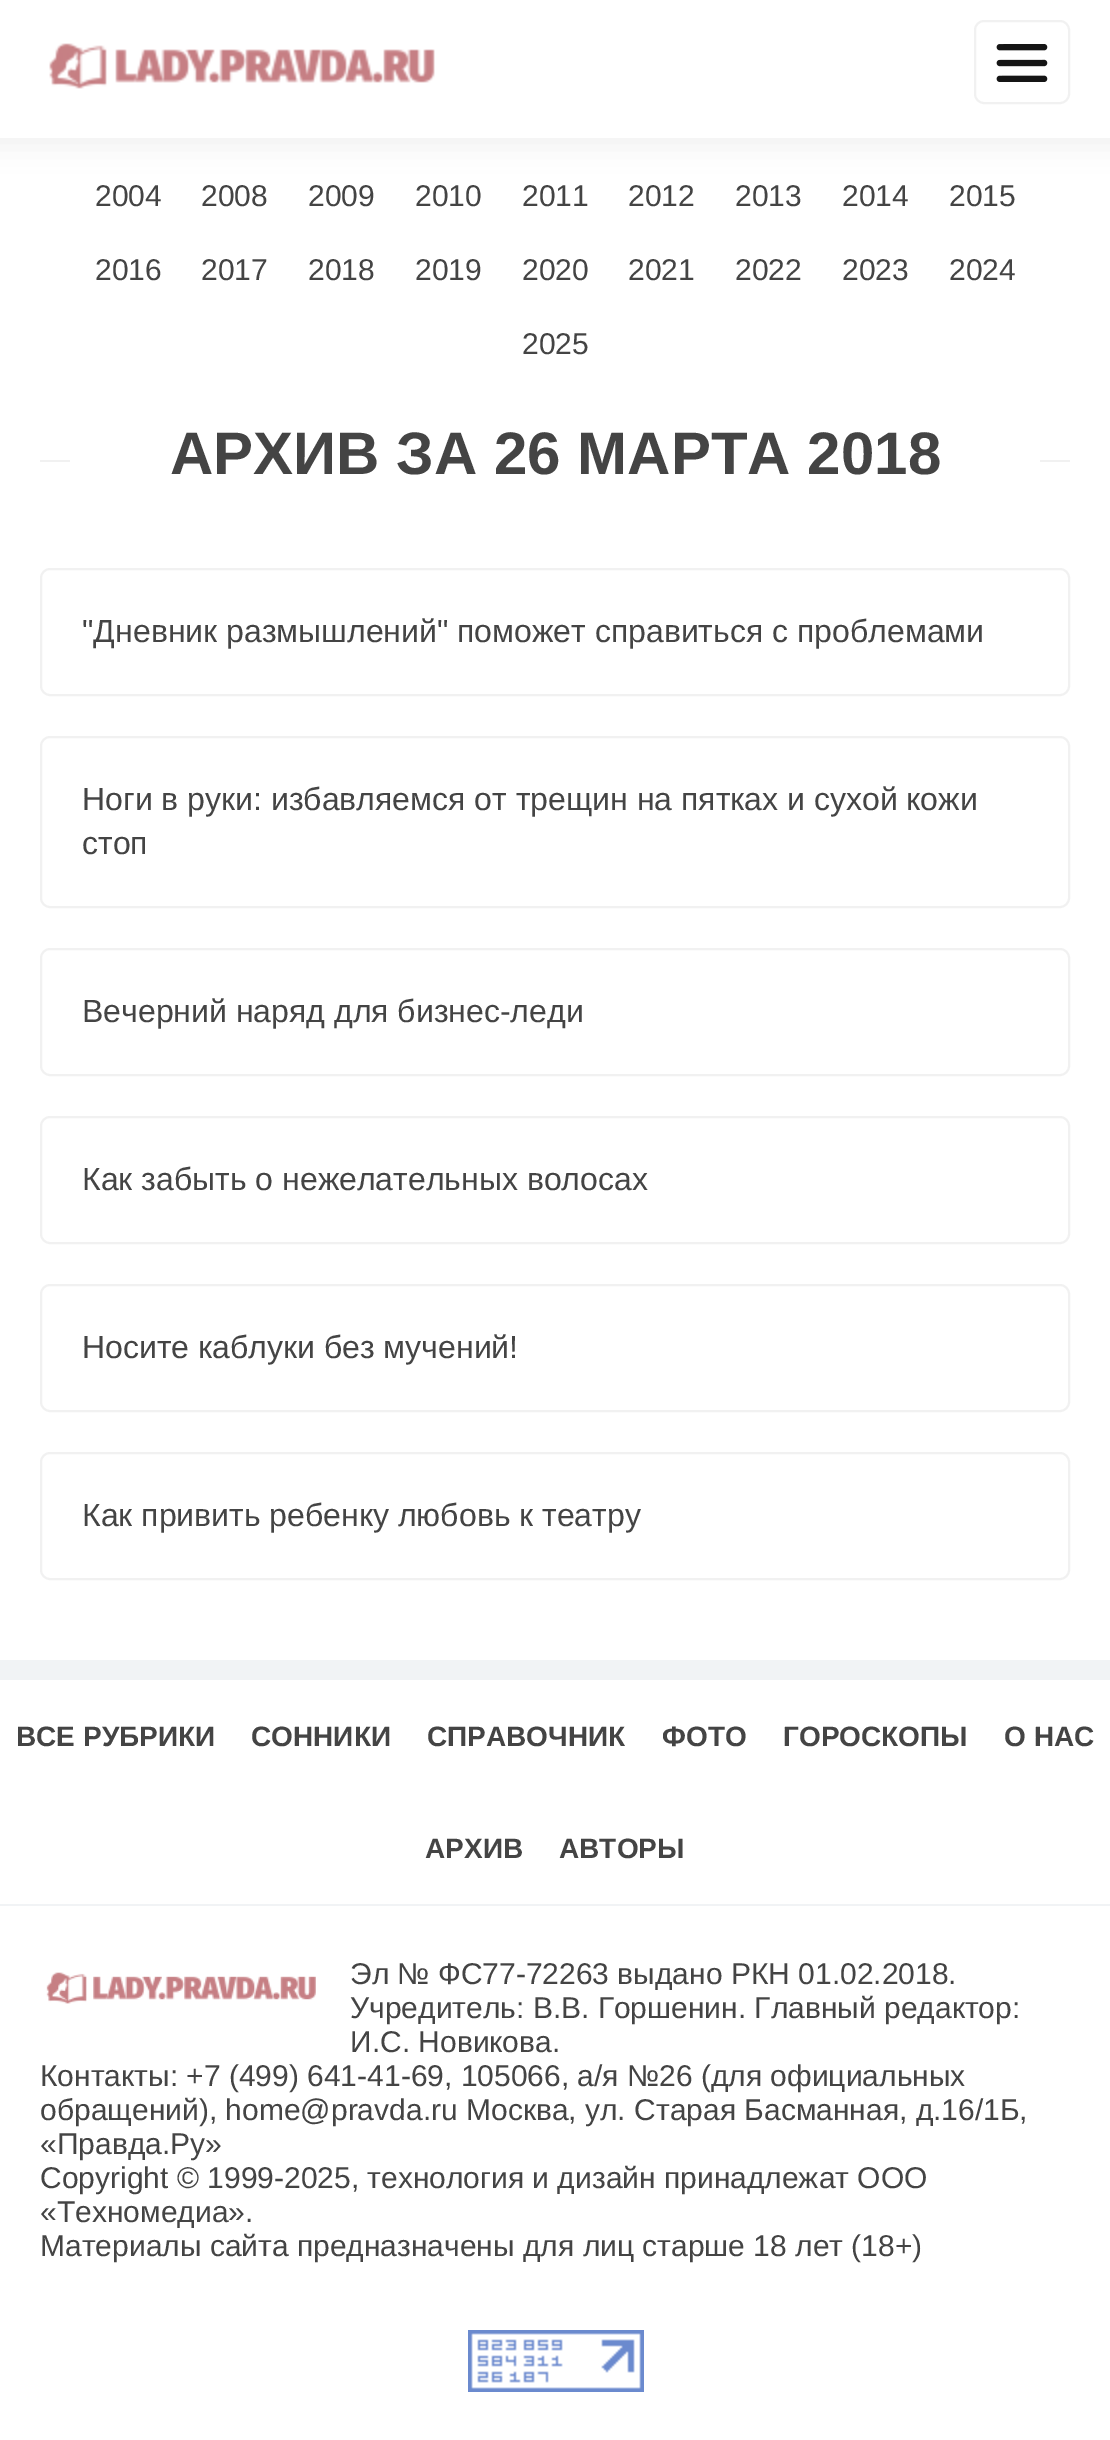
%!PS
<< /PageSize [1110 2440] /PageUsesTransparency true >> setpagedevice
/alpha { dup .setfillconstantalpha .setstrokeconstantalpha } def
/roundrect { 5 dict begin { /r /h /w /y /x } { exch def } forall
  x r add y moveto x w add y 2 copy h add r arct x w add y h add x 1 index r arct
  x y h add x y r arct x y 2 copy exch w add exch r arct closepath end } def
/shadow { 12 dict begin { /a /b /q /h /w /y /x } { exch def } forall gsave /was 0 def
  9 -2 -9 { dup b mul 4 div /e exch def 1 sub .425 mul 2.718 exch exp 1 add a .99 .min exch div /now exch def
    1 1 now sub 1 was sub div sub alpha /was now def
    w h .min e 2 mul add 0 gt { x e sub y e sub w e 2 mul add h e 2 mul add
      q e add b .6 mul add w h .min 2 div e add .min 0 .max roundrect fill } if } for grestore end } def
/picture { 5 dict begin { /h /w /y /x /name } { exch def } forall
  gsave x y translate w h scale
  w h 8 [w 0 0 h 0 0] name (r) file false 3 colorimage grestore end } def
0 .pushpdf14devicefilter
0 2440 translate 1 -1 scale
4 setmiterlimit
0.945 0.953 0.961 setrgbcolor
0 0 1110 2440 rectfill
1 setgray
0 138 1110 1522 rectfill
0 setgray
-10 -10 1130 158 0 15 0.05 shadow
1 setgray
0 0 1110 138 rectfill
(img1.rgb) 49 43 386 46 picture
0.945 setgray
2 setlinewidth
975 21 94 82 9 roundrect stroke
(img2.rgb) 996 44 52 38 picture
/LiberationSans-Regular [30 0 0 -30 0 0] selectfont
0.267 setgray
95 206 moveto (2004) show
201 206 moveto (2008) show
308 206 moveto (2009) show
415 206 moveto (2010) show
522 206 moveto (2011) show
628 206 moveto (2012) show
735 206 moveto (2013) show
842 206 moveto (2014) show
949 206 moveto (2015) show
95 280 moveto (2016) show
201 280 moveto (2017) show
308 280 moveto (2018) show
415 280 moveto (2019) show
522 280 moveto (2020) show
628 280 moveto (2021) show
735 280 moveto (2022) show
842 280 moveto (2023) show
949 280 moveto (2024) show
522 354 moveto (2025) show
0.945 setgray
40 460 1030 2 rectfill
1 setgray
70 460 970 2 rectfill
/LiberationSans-Bold [60 0 0 -60 0 0] selectfont
0.267 setgray
170 474 moveto (АРХИВ ЗА 26 МАРТА 2018) show
0.945 setgray
41 569 1028 126 9 roundrect stroke
/LiberationSans-Regular [32 0 0 -32 0 0] selectfont
0.267 setgray
82 642 moveto ("Дневник размышлений" поможет справиться с проблемами) show
0.945 setgray
41 737 1028 170 9 roundrect stroke
0.267 setgray
82 810 moveto (Ноги в руки: избавляемся от трещин на пятках и сухой кожи) show
82 854 moveto (стоп) show
0.945 setgray
41 949 1028 126 9 roundrect stroke
0.267 setgray
82 1022 moveto (Вечерний наряд для бизнес-леди) show
0.945 setgray
41 1117 1028 126 9 roundrect stroke
0.267 setgray
82 1190 moveto (Как забыть о нежелательных волосах) show
0.945 setgray
41 1285 1028 126 9 roundrect stroke
0.267 setgray
82 1358 moveto (Носите каблуки без мучений!) show
0.945 setgray
41 1453 1028 126 9 roundrect stroke
0.267 setgray
82 1526 moveto (Как привить ребенку любовь к театру) show
1 setgray
0 1680 1110 760 rectfill
0.945 0.953 0.961 setrgbcolor
0 1904 1110 2 rectfill
/LiberationSans-Bold [28 0 0 -28 0 0] selectfont
0.267 setgray
16 1746 moveto (ВСЕ РУБРИКИ) show
251 1746 moveto (СОННИКИ) show
427 1746 moveto (СПРАВОЧНИК) show
662 1746 moveto (ФОТО) show
783 1746 moveto (ГОРОСКОПЫ) show
1004 1746 moveto (О НАС) show
425 1858 moveto (АРХИВ) show
559 1858 moveto (АВТОРЫ) show
/LiberationSans-Regular [30 0 0 -30 0 0] selectfont
350 1984 moveto (Эл № ФС77-72263 выдано РКН 01.02.2018.) show
350 2018 moveto (Учредитель: В.В. Горшенин. Главный редактор:) show
350 2052 moveto (И.С. Новикова.) show
40 2086 moveto (Контакты: +7 \(499\) 641-41-69, 105066, а/я №26 \(для официальных) show
40 2120 moveto (обращений\), home@pravda.ru Москва, ул. Старая Басманная, д.16/1Б,) show
40 2154 moveto («Правда.Ру») show
40 2188 moveto (Copyright © 1999-2025, технология и дизайн принадлежат ООО) show
40 2222 moveto («Техномедиа».) show
40 2256 moveto (Материалы сайта предназначены для лиц старше 18 лет \(18+\)) show
(img3.rgb) 46 1972 270 32 picture
(img4.rgb) 468 2330 176 62 picture
.poppdf14devicefilter showpage
